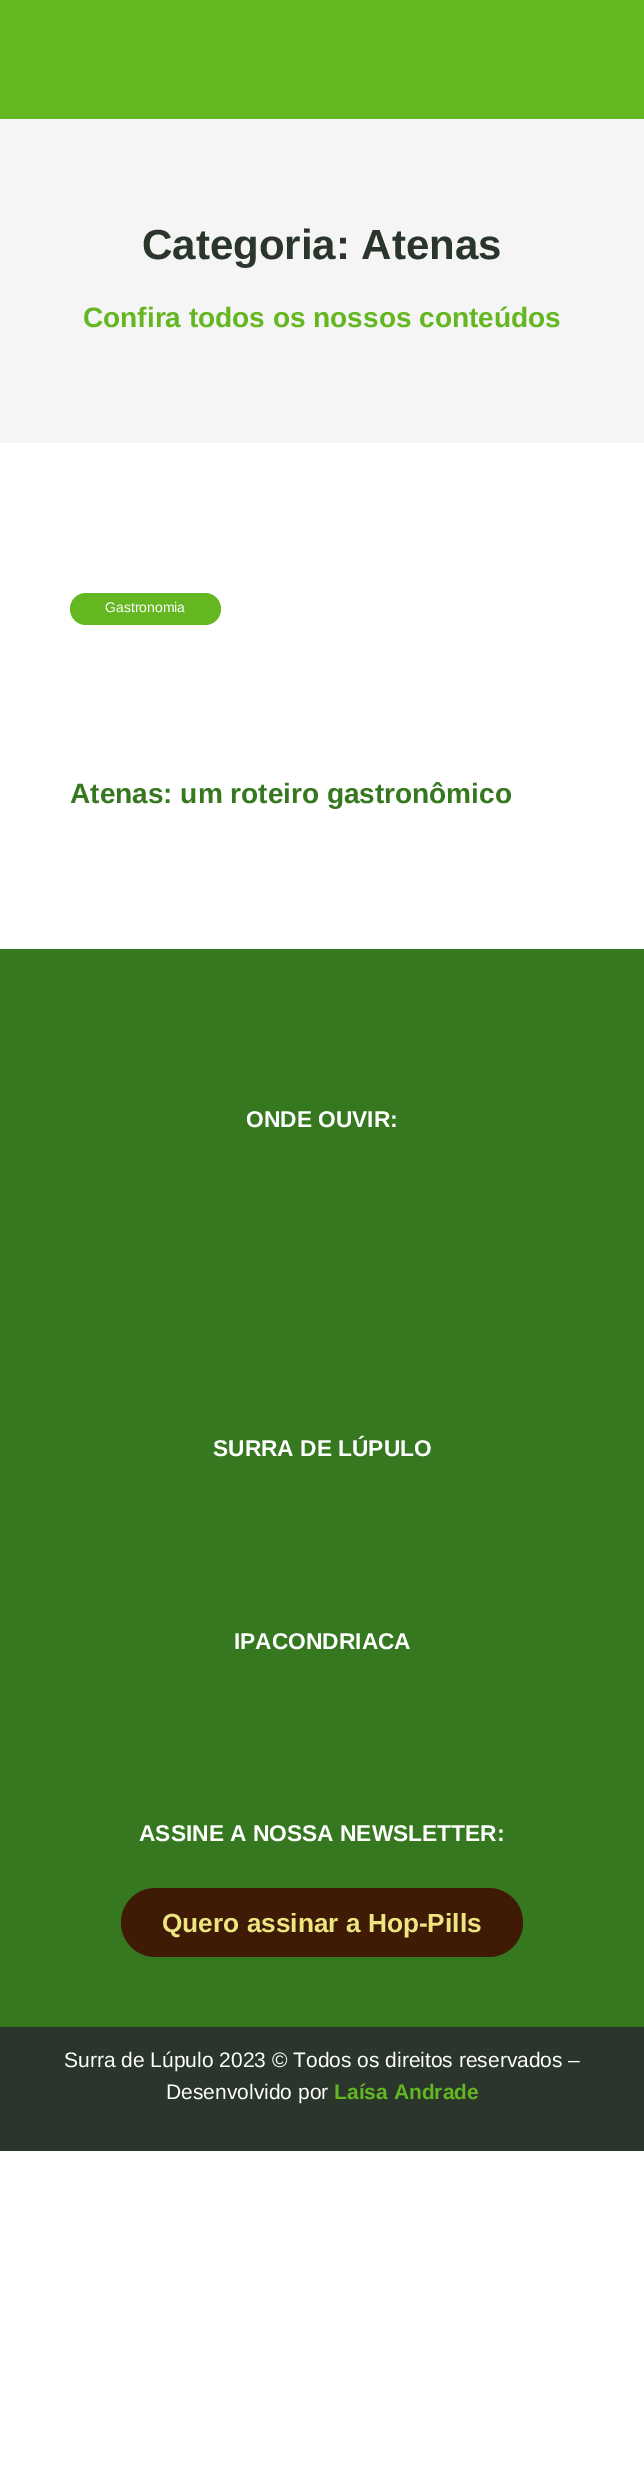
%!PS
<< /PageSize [644 2477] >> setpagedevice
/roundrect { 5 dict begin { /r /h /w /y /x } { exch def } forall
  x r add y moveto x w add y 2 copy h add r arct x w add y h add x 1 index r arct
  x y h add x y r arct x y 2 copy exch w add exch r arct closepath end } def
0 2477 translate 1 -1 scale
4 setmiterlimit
1 setgray
0 0 644 2477 rectfill
0.396 0.718 0.129 setrgbcolor
0 0 644 119 rectfill
0.961 setgray
0 119 644 324 rectfill
/LiberationSans-Bold [42 0 0 -42 0 0] selectfont
0.165 0.208 0.173 setrgbcolor
142 259 moveto (Categoria: Atenas) show
/LiberationSans-Bold [28 0 0 -28 0 0] selectfont
0.396 0.718 0.129 setrgbcolor
83 327 moveto (Confira todos os nossos conteúdos) show
70 593 151 32 16 roundrect fill
/LiberationSans-Regular [14 0 0 -14 0 0] selectfont
1 setgray
105 612 moveto (Gastronomia) show
/LiberationSans-Bold [28 0 0 -28 0 0] selectfont
0.212 0.471 0.122 setrgbcolor
70 803 moveto (Atenas: um roteiro gastronômico) show
0 949 644 1078 rectfill
/LiberationSans-Bold [22.75 0 0 -22.75 0 0] selectfont
1 setgray
246 1127 moveto (ONDE OUVIR:) show
213 1456 moveto (SURRA DE LÚPULO) show
234 1649 moveto (IPACONDRIACA) show
139 1841 moveto (ASSINE A NOSSA NEWSLETTER:) show
0.247 0.106 0.024 setrgbcolor
121 1888 402 69 34.5 roundrect fill
/LiberationSans-Bold [26.25 0 0 -26.25 0 0] selectfont
0.929 0.898 0.502 setrgbcolor
162 1932 moveto (Quero assinar a Hop-Pills) show
0.165 0.208 0.173 setrgbcolor
0 2027 644 124 rectfill
/LiberationSans-Regular [21 0 0 -21 0 0] selectfont
1 setgray
64 2067 moveto (Surra de Lúpulo 2023 © Todos os direitos reservados –) show
166 2099 moveto (Desenvolvido por) show
/LiberationSans-Bold [21 0 0 -21 0 0] selectfont
0.396 0.718 0.129 setrgbcolor
334 2099 moveto (Laísa Andrade) show
showpage
